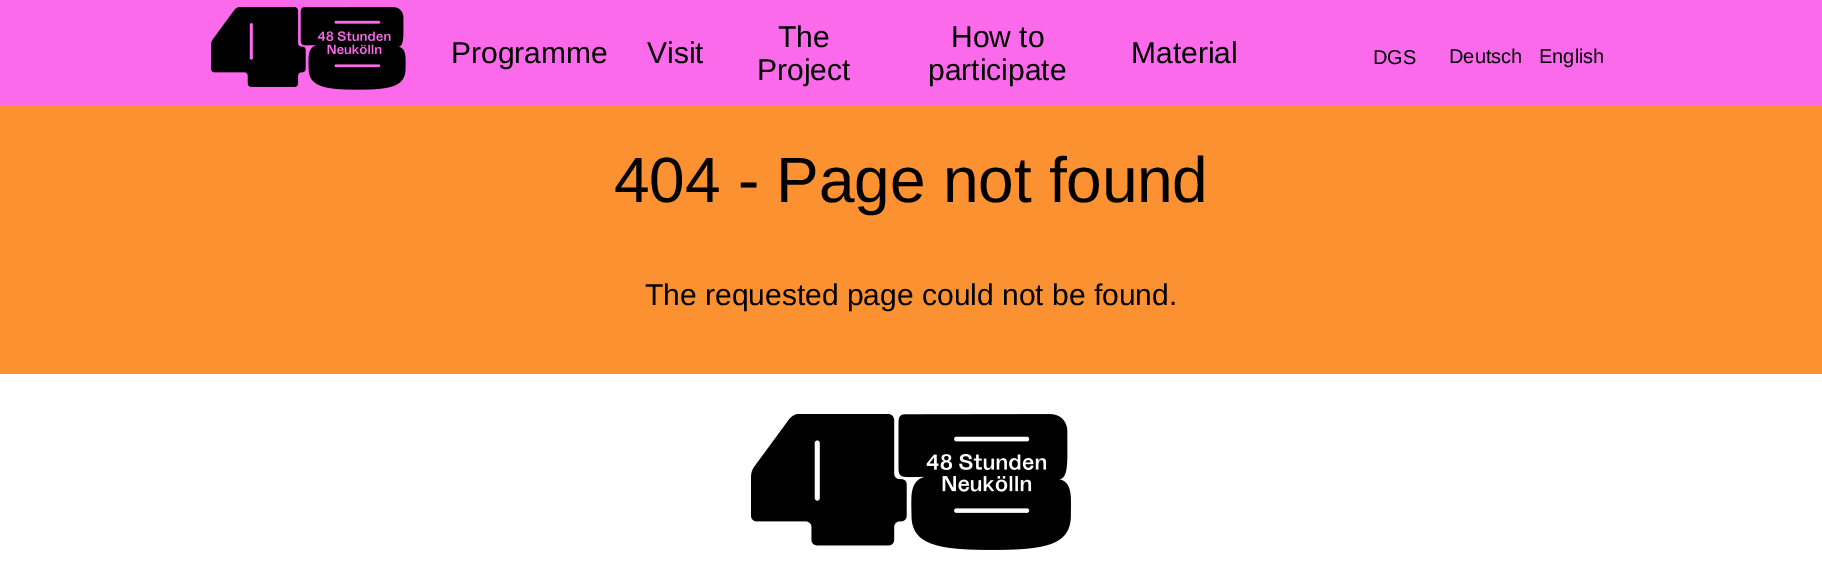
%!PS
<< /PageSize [1822 586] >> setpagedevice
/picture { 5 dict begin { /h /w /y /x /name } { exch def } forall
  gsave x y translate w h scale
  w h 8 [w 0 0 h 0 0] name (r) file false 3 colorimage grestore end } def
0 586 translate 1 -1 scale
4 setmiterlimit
0.984 0.569 0.188 setrgbcolor
0 0 1822 586 rectfill
0.98 0.416 0.922 setrgbcolor
0 0 1822 105 rectfill
(img1.rgb) 211 7 195 83 picture
/LiberationSans-Regular [30 0 0 -30 0 0] selectfont
0 setgray
451 63 moveto (Programme) show
647 63 moveto (Visit) show
778 47 moveto (The) show
757 80 moveto (Project) show
951 47 moveto (How to) show
928 80 moveto (participate) show
1131 63 moveto (Material) show
/LiberationSans-Regular [20 0 0 -20 0 0] selectfont
1373 64 moveto (DGS) show
1449 63 moveto (Deutsch) show
1539 63 moveto (English) show
/LiberationSans-Regular [64 0 0 -64 0 0] selectfont
614 202 moveto -0.2 0 (404 - Page not found) ashow
/LiberationSans-Regular [30 0 0 -30 0 0] selectfont
645 305 moveto (The requested page could not be found.) show
1 setgray
0 374 1822 212 rectfill
(img2.rgb) 751 414 320 136 picture
showpage
